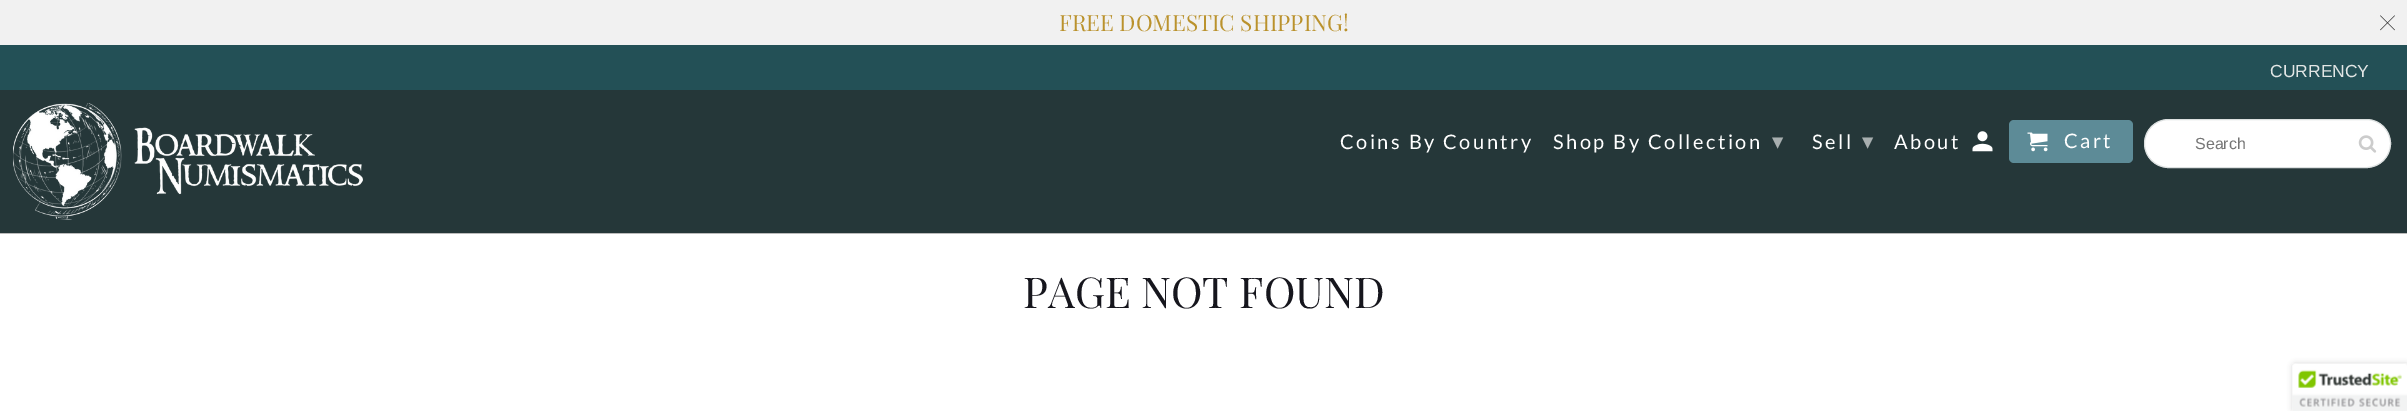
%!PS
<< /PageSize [2407 411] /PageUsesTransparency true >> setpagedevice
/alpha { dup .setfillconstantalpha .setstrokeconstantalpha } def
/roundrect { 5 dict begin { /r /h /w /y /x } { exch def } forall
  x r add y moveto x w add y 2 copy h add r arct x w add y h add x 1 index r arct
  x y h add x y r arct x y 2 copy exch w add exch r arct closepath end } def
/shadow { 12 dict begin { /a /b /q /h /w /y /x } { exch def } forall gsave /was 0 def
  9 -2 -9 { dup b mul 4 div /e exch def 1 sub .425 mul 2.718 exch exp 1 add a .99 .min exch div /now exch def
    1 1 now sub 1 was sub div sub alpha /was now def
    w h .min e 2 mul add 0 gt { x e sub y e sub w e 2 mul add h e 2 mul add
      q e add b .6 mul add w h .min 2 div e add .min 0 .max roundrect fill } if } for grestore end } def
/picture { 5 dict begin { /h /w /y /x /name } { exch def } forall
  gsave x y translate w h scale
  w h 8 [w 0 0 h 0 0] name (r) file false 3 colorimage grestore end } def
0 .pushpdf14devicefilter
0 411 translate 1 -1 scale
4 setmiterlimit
1 setgray
0 0 2407 411 rectfill
0.145 0.216 0.224 setrgbcolor
0 90 2407 143 rectfill
0.733 setgray
0 233 2407 1 rectfill
0.945 setgray
0 0 2407 45 rectfill
/PlayfairDisplay-Regular [22.5 0 0 -22.5 0 0] selectfont
0.729 0.573 0.176 setrgbcolor
1059 31 moveto (FREE DOMESTIC SHIPPING!) show
(img1.rgb) 2380 15 15 16 picture
0.137 0.314 0.337 setrgbcolor
0 45 2407 45 rectfill
/LiberationSans-Regular [17.5 0 0 -17.5 0 0] selectfont
0.886 0.902 0.898 setrgbcolor
2270 77 moveto (CURRENCY) show
(img2.rgb) 13 103 350 117 picture
/Lato-Regular [20 0 0 -20 0 0] selectfont
1 setgray
1340 149 moveto 2.5 0 (Coins By Country) ashow
1553 149 moveto 2.5 0 (Shop By Collection) ashow
/DejaVuSans-Regular [22.5 0 0 -22.5 0 0] selectfont
0.659 0.686 0.69 setrgbcolor
1772 149 moveto 2.5 0 (▾) ashow
/Lato-Regular [20 0 0 -20 0 0] selectfont
1 setgray
1812 149 moveto 2.5 0 (Sell) ashow
/DejaVuSans-Regular [22.5 0 0 -22.5 0 0] selectfont
0.659 0.686 0.69 setrgbcolor
1862 149 moveto 2.5 0 (▾) ashow
/Lato-Regular [20 0 0 -20 0 0] selectfont
1 setgray
1894 149 moveto 2.5 0 (About) ashow
(img3.rgb) 1972 131 21 21 picture
0.365 0.545 0.592 setrgbcolor
2009 120 124 43 5 roundrect fill
(img4.rgb) 2027 132 21 20 picture
1 setgray
2064 148 moveto 2.5 0 (Cart) ashow
2144.5 119.5 246 48 24 roundrect gsave fill grestore
0.863 0.878 0.878 setrgbcolor
stroke
/LiberationSans-Regular [16 0 0 -16 0 0] selectfont
0.459 setgray
2195 149 moveto (Search) show
(img5.rgb) 2358 135 19 18 picture
/PlayfairDisplay-Regular [42.5 0 0 -42.5 0 0] selectfont
0.086 0.086 0.114 setrgbcolor
1023 308 moveto (PAGE NOT FOUND) show
0 setgray
2293 364 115 47 2.5 3 0.2 shadow
(img6.rgb) 2292 363 115 48 picture
.poppdf14devicefilter showpage
